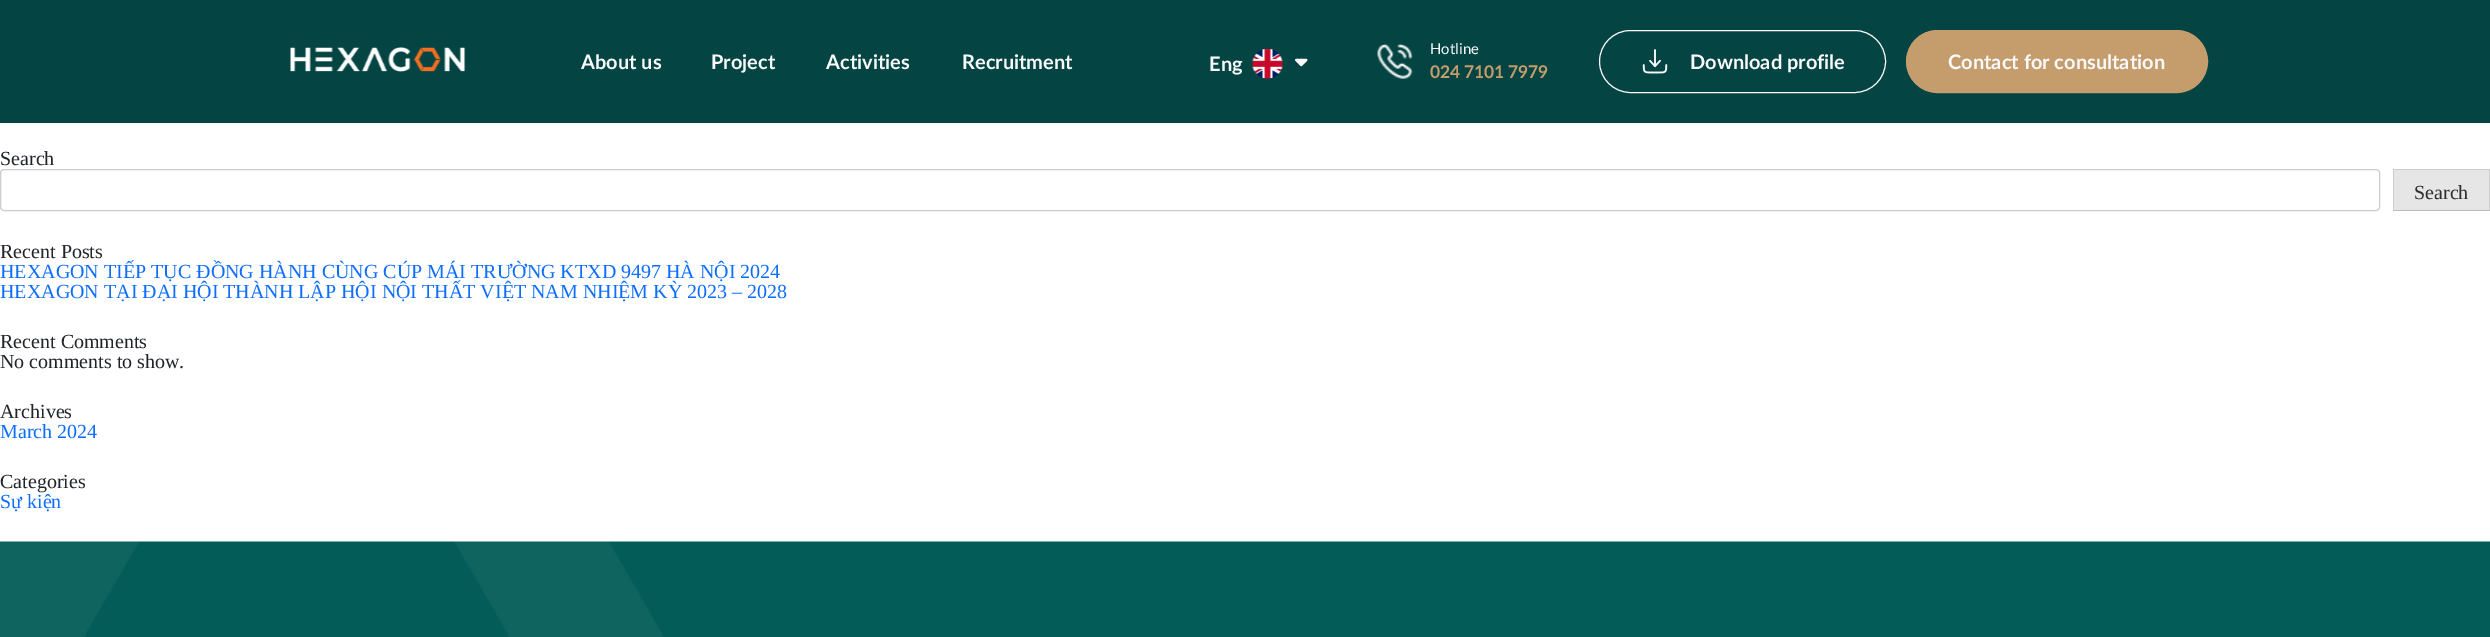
%!PS
<< /PageSize [2490 637] >> setpagedevice
/roundrect { 5 dict begin { /r /h /w /y /x } { exch def } forall
  x r add y moveto x w add y 2 copy h add r arct x w add y h add x 1 index r arct
  x y h add x y r arct x y 2 copy exch w add exch r arct closepath end } def
/picture { 5 dict begin { /h /w /y /x /name } { exch def } forall
  gsave x y translate w h scale
  w h 8 [w 0 0 h 0 0] name (r) file false 3 colorimage grestore end } def
0 637 translate 1 -1 scale
4 setmiterlimit
1 setgray
0 0 2490 637 rectfill
0.016 0.267 0.259 setrgbcolor
0 0 2490 123 rectfill
(img1.rgb) 290 47 176 25 picture
/Lato-Bold [20 0 0 -20 0 0] selectfont
0.976 0.98 0.984 setrgbcolor
581 69 moveto (About us) show
711 69 moveto (Project) show
826 69 moveto (Activities) show
962 69 moveto (Recruitment) show
1209 71 moveto (Eng) show
(img2.rgb) 1252 48 31 31 picture
(img3.rgb) 1295 58 13 9 picture
(img4.rgb) 1377 43 36 36 picture
/Lato-Regular [15 0 0 -15 0 0] selectfont
1430 54 moveto (Hotline) show
/Lato-Bold [17.5 0 0 -17.5 0 0] selectfont
0.773 0.616 0.424 setrgbcolor
1430 78 moveto -1 0 32 (024 7101 7979) widthshow
0.976 0.98 0.984 setrgbcolor
1599.5 30.5 286 62 31 roundrect stroke
(img5.rgb) 1642 49 26 25 picture
/Lato-Bold [20 0 0 -20 0 0] selectfont
1690 69 moveto (Download profile) show
0.773 0.616 0.424 setrgbcolor
1906.5 30.5 301 62 31 roundrect gsave fill grestore
stroke
0.976 0.98 0.984 setrgbcolor
1948 69 moveto (Contact for consultation) show
/LiberationSerif-Regular [20 0 0 -20 0 0] selectfont
0.129 0.145 0.161 setrgbcolor
0 165 moveto (Search) show
0.8 setgray
0.5 169.5 2379 41 3.5 roundrect stroke
0.902 setgray
2394 170 95 40 rectfill
0.8 setgray
2393 169 97 1 rectfill
2489 169 1 42 rectfill
0.733 setgray
2393 210 97 1 rectfill
0.8 setgray
2393 169 1 42 rectfill
0.18 setgray
2414 199 moveto (Search) show
0.129 0.145 0.161 setrgbcolor
0 258 moveto (Recent Posts) show
0.051 0.431 0.992 setrgbcolor
0 278 moveto (HEXAGON TIẾP TỤC ĐỒNG HÀNH CÙNG CÚP MÁI TRƯỜNG KTXD 9497 HÀ NỘI 2024) show
0 298 moveto (HEXAGON TẠI ĐẠI HỘI THÀNH LẬP HỘI NỘI THẤT VIỆT NAM NHIỆM KỲ 2023 – 2028) show
0.129 0.145 0.161 setrgbcolor
0 348 moveto (Recent Comments) show
0 368 moveto (No comments to show.) show
0 418 moveto (Archives) show
0.051 0.431 0.992 setrgbcolor
0 438 moveto (March 2024) show
0.129 0.145 0.161 setrgbcolor
0 488 moveto (Categories) show
0.051 0.431 0.992 setrgbcolor
0 508 moveto (Sự kiện) show
(img6.rgb) 0 541 2490 96 picture
showpage
